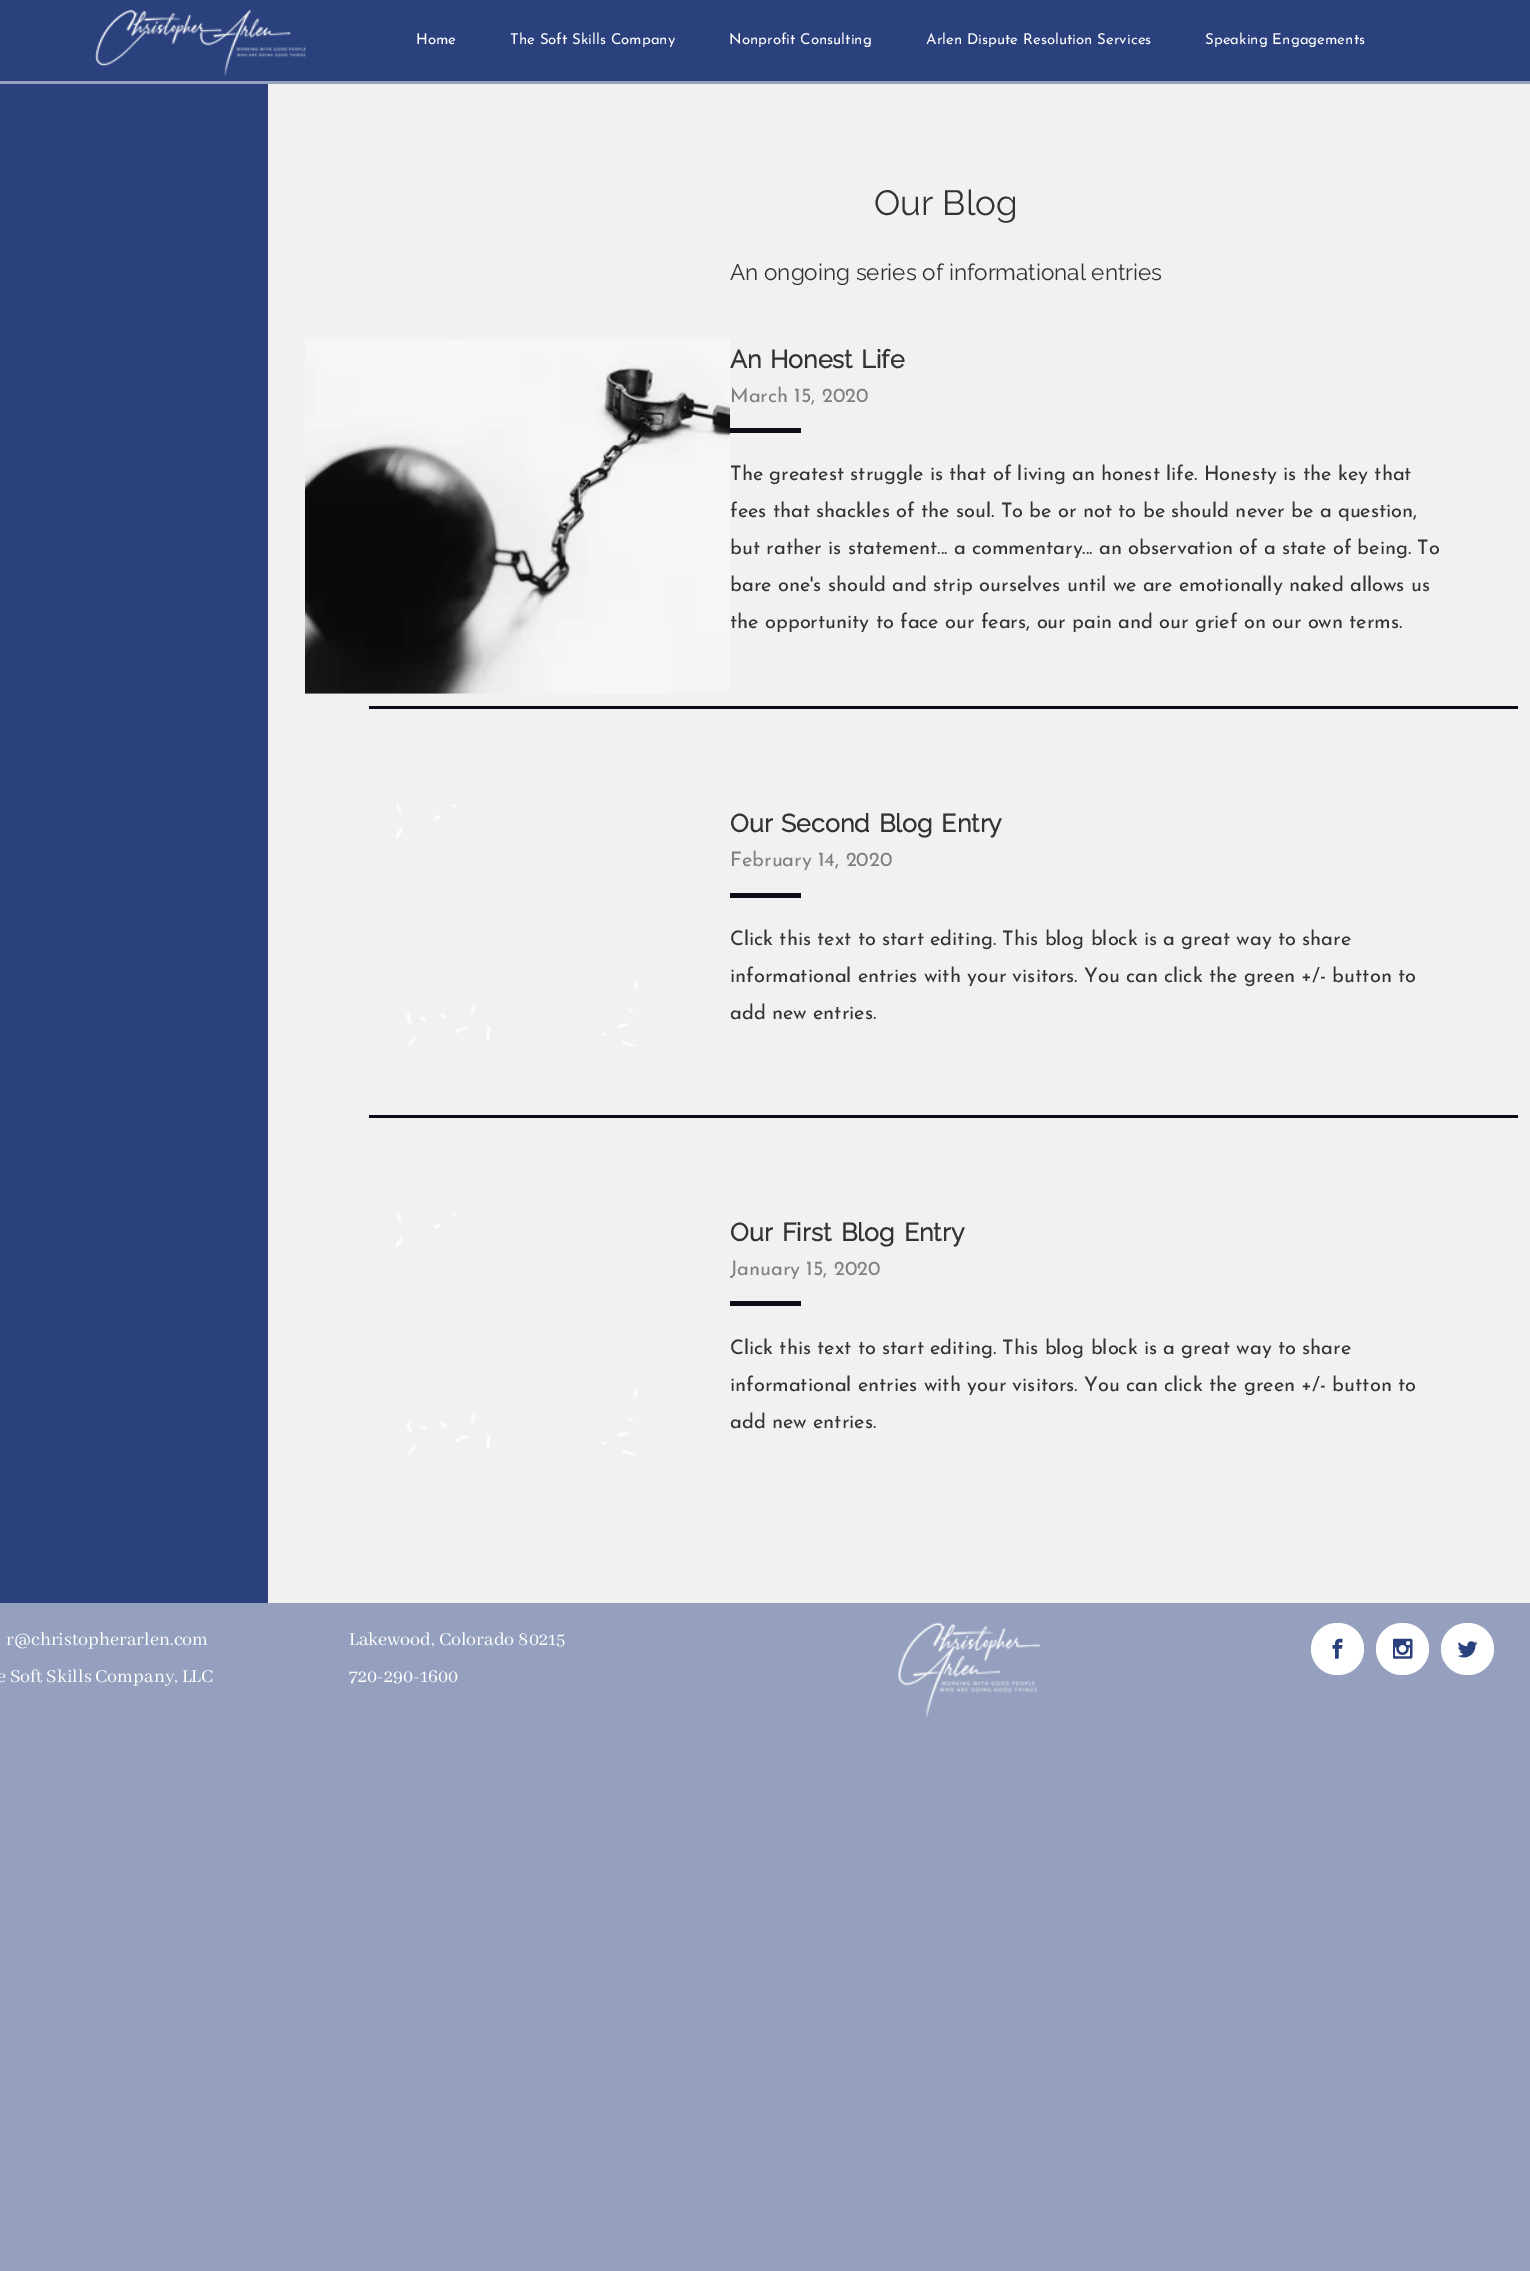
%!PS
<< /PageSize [1530 2271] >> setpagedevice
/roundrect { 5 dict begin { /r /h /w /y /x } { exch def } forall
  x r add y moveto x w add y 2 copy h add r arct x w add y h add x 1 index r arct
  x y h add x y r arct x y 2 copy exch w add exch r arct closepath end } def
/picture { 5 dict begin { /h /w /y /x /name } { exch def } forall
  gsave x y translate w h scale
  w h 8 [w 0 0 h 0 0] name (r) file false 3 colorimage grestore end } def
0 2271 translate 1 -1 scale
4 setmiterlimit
0.584 0.627 0.749 setrgbcolor
0 0 1530 2271 rectfill
0.165 0.255 0.494 setrgbcolor
0 0 1530 81 rectfill
(img1.rgb) 95 9 212 67 picture
/JosefinSans-Regular [15 0 0 -15 0 0] selectfont
1 setgray
416 44 moveto (Home) show
510 44 moveto (The Soft Skills Company) show
729 44 moveto (Nonprofit Consulting) show
926 44 moveto (Arlen Dispute Resolution Services) show
1205 44 moveto (Speaking Engagements) show
0.165 0.255 0.494 setrgbcolor
0 84 268 1519 rectfill
0.945 setgray
268 84 1262 1519 rectfill
/Raleway-Regular [35 0 0 -35 0 0] selectfont
0.2 setgray
874 215 moveto (Our Blog) show
/Raleway-Regular [22.5 0 0 -22.5 0 0] selectfont
730 280 moveto (An ongoing series of informational entries) show
(img2.rgb) 305 339 425 355 picture
/Raleway-Bold [25 0 0 -25 0 0] selectfont
730 368 moveto 2 0 32 (An Honest Life) widthshow
/JosefinSans-Regular [20 0 0 -20 0 0] selectfont
0.506 0.494 0.518 setrgbcolor
730 402 moveto (March 15, 2020) show
0.067 0.039 0.09 setrgbcolor
730 428 71 5 rectfill
0.2 setgray
730 480 moveto (The greatest struggle is that of living an honest life. Honesty is the key that) show
730 517 moveto (fees that shackles of the soul. To be or not to be should never be a question,) show
730 554 moveto (but rather is statement... a commentary... an observation of a state of being. To) show
730 591 moveto (bare one's should and strip ourselves until we are emotionally naked allows us) show
730 628 moveto (the opportunity to face our fears, our pain and our grief on our own terms.) show
0.067 0.039 0.09 setrgbcolor
369 706 1149 3 rectfill
(img3.rgb) 396 804 242 242 picture
/Raleway-Bold [25 0 0 -25 0 0] selectfont
0.2 setgray
730 832 moveto 2.5 0 32 (Our Second Blog Entry) widthshow
/JosefinSans-Regular [20 0 0 -20 0 0] selectfont
0.506 0.494 0.518 setrgbcolor
730 866 moveto (February 14, 2020) show
0.067 0.039 0.09 setrgbcolor
730 893 71 5 rectfill
0.2 setgray
730 945 moveto (Click this text to start editing. This blog block is a great way to share) show
730 982 moveto (informational entries with your visitors. You can click the green +/- button to) show
730 1019 moveto (add new entries.) show
0.067 0.039 0.09 setrgbcolor
369 1115 1149 3 rectfill
(img4.rgb) 396 1213 242 242 picture
/Raleway-Bold [25 0 0 -25 0 0] selectfont
0.2 setgray
730 1241 moveto 3 0 32 (Our First Blog Entry) widthshow
/JosefinSans-Regular [20 0 0 -20 0 0] selectfont
0.506 0.494 0.518 setrgbcolor
730 1275 moveto (January 15, 2020) show
0.067 0.039 0.09 setrgbcolor
730 1301 71 5 rectfill
0.2 setgray
730 1354 moveto (Click this text to start editing. This blog block is a great way to share) show
730 1391 moveto (informational entries with your visitors. You can click the green +/- button to) show
730 1428 moveto (add new entries.) show
/AbhayaLibre-Regular [20 0 0 -20 0 0] selectfont
1 setgray
6 1645 moveto (r@christopherarlen.com) show
-3 1682 moveto (e Soft Skills Company, LLC) show
349 1645 moveto (Lakewood, Colorado 80215) show
349 1682 moveto (720-290-1600) show
(img5.rgb) 897 1622 144 96 picture
1311 1623 53 52 26 roundrect fill
(img6.rgb) 1332 1638 11 21 picture
1376 1623 53 52 26 roundrect fill
(img7.rgb) 1393 1638 20 21 picture
1441 1623 53 52 26 roundrect fill
(img8.rgb) 1458 1641 20 17 picture
showpage
